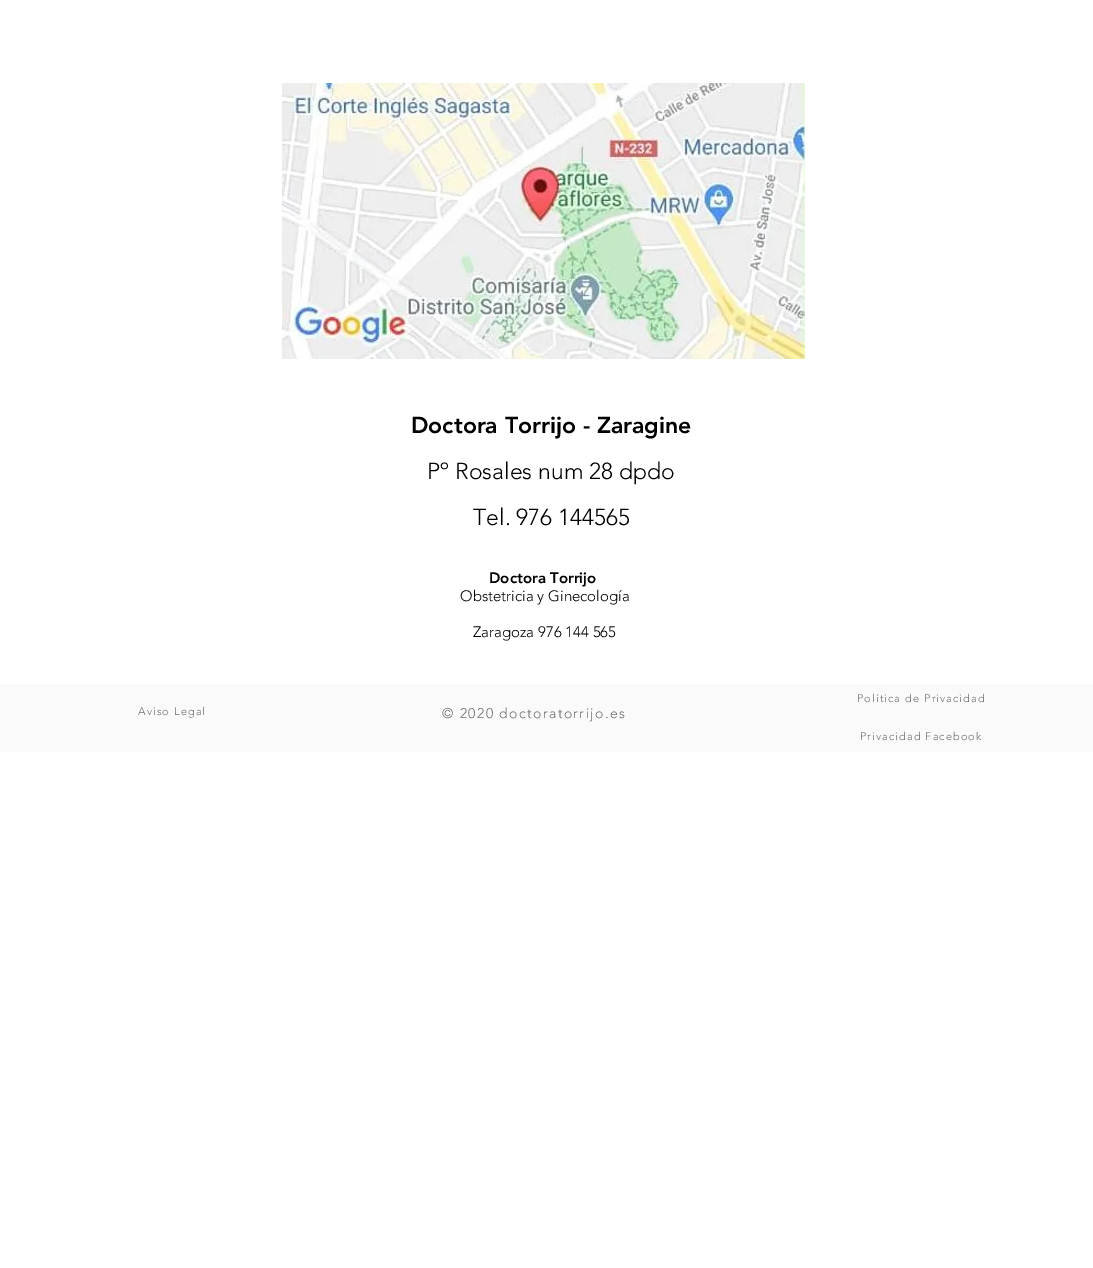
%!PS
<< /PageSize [1093 1268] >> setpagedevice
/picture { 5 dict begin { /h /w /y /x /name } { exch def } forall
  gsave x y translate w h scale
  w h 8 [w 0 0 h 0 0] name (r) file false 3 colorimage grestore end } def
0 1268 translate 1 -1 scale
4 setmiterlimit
1 setgray
0 0 1093 1268 rectfill
(img1.rgb) 282 83 523 276 picture
/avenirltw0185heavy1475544-Black [23 0 0 -23 0 0] selectfont
0 setgray
411 433 moveto (Doctora Torrijo - Zaragine) show
/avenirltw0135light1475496-Light [23 0 0 -23 0 0] selectfont
427 479 moveto (Pº Rosales num 28 dpdo) show
473 525 moveto (Tel. 976 144565) show
/avenirltw0185heavy1475544-Black [15 0 0 -15 0 0] selectfont
489 583 moveto (Doctora Torrijo) show
/avenirltw0135light1475496-Light [15 0 0 -15 0 0] selectfont
460 601 moveto (Obstetricia y Ginecología) show
473 637 moveto (Zaragoza 976 144 565) show
0.98 setgray
0 684 1093 68 rectfill
/avenirltw0135light1475496-Light [11 0 0 -11 0 0] selectfont
0.431 0.431 0.427 setrgbcolor
857 702 moveto 1.1 0 (Política de Privacidad) ashow
138 715 moveto 1.1 0 (Aviso Legal) ashow
/avenirltw0135light1475496-Light [14 0 0 -14 0 0] selectfont
442 718 moveto 1.4 0 (© 2020 doctoratorrijo.es) ashow
/avenirltw0135light1475496-Light [11 0 0 -11 0 0] selectfont
860 740 moveto 1.1 0 (Privacidad Facebook) ashow
showpage
